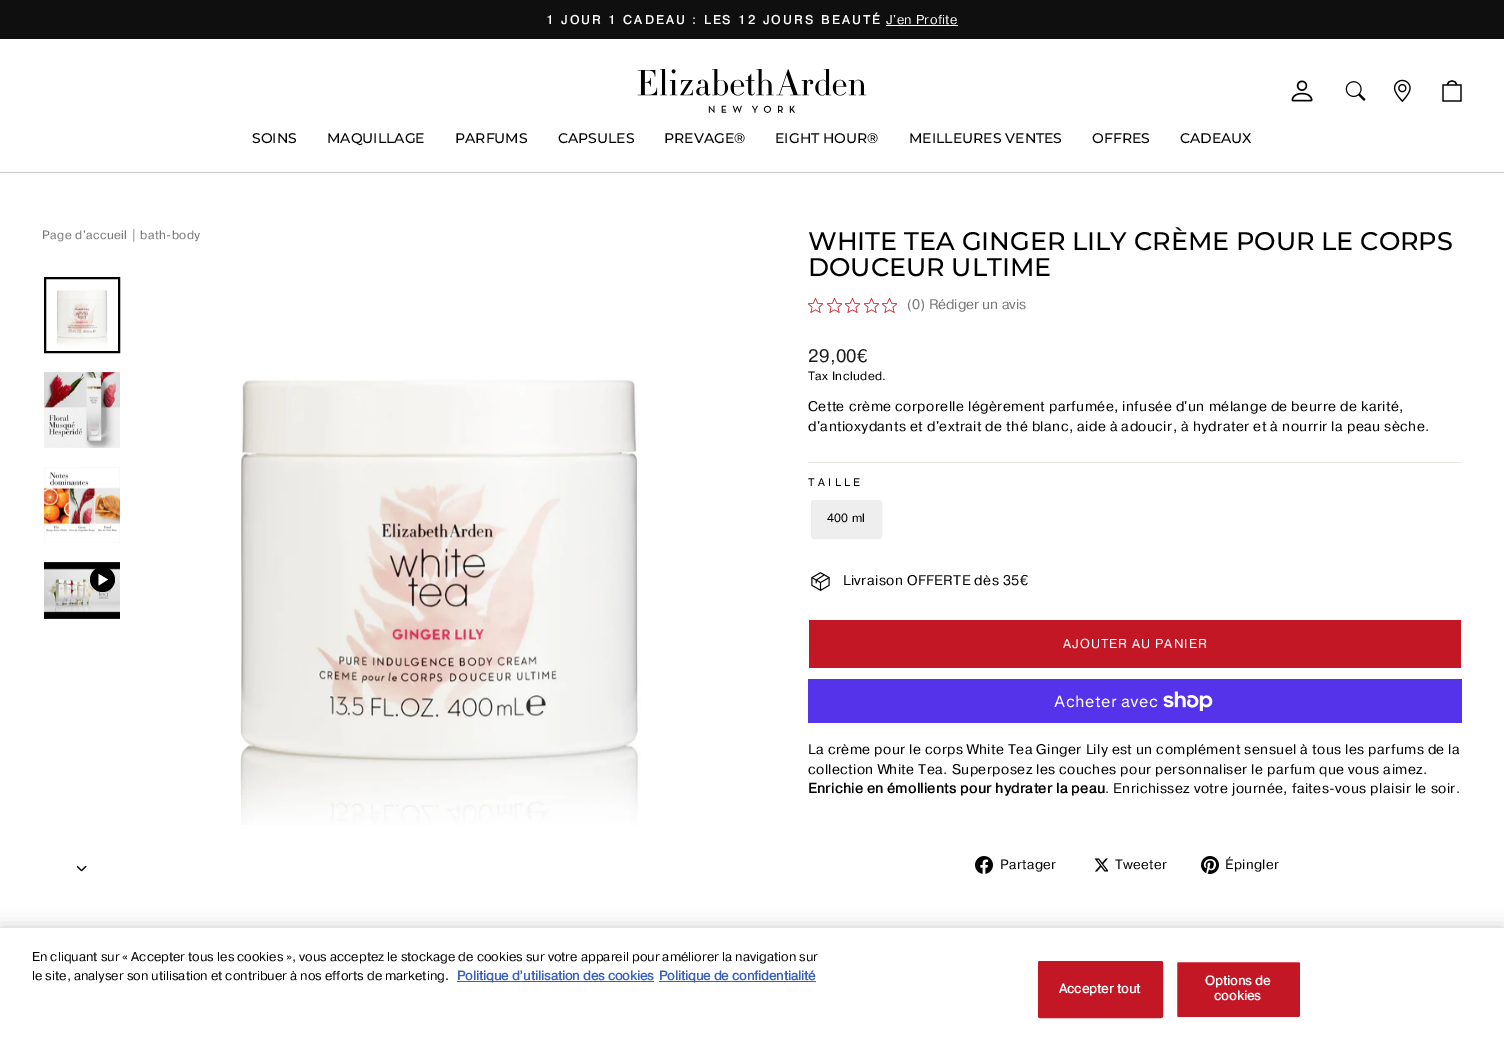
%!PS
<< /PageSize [1504 1054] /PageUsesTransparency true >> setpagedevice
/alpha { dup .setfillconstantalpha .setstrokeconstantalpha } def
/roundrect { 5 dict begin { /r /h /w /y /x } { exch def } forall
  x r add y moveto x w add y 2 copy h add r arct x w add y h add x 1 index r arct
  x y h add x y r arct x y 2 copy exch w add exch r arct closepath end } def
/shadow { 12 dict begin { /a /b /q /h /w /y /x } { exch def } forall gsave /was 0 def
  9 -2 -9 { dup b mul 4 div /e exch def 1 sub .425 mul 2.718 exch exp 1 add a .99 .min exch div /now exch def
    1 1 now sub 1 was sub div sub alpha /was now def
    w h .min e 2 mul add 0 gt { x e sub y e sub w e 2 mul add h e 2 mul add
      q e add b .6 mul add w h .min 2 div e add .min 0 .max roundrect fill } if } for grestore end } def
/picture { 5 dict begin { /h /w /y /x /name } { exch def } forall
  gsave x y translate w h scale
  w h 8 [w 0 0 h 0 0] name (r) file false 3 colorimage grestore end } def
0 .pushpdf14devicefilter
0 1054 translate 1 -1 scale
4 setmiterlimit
1 setgray
0 0 1504 1054 rectfill
0.059 setgray
0 0 1504 39 rectfill
/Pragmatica-Bold [12.25 0 0 -12.25 0 0] selectfont
1 setgray
546 24 moveto 2.45 0 (1 JOUR 1 CADEAU : LES 12 JOURS BEAUTÉ) ashow
/Pragmatica-Regular [13 0 0 -13 0 0] selectfont
886 24 moveto 0.4 0 (J'en Profite) ashow
886 25 72 1 rectfill
(img1.rgb) 1291 80 22 22 picture
(img2.rgb) 1345 81 21 20 picture
(img3.rgb) 1393 79 18 23 picture
0.8 setgray
0 172 1504 1 rectfill
(img4.rgb) 637 69 230 44 picture
0 setgray
1.3 setlinewidth
newpath 1443 85 moveto 1461 85 lineto 1461 101 lineto 1443 101 lineto closepath 1447.5 85 moveto 1447.5 79.5 1456.5 79.5 1456.5 85 curveto stroke
/Montserrat-Medium [14 0 0 -14 0 0] selectfont
252 143 moveto (SOINS) show
327 143 moveto (MAQUILLAGE) show
455 143 moveto (PARFUMS) show
558 143 moveto (CAPSULES) show
664 143 moveto (PREVAGE®) show
775 143 moveto (EIGHT HOUR®) show
909 143 moveto (MEILLEURES VENTES) show
1092 143 moveto (OFFRES) show
1180 143 moveto (CADEAUX) show
/Pragmatica-Regular [12 0 0 -12 0 0] selectfont
0.467 setgray
42 239 moveto 0.4 0 (Page d'accueil | bath-body) ashow
(img5.rgb) 56 289 52 57 picture
0 setgray
2 setlinewidth
45 278 74 74 rectstroke
(img6.rgb) 44 372 76 76 picture
(img7.rgb) 44 467 76 76 picture
(img8.rgb) 44 562 76 57 picture
newpath 102.5 579.5 12.5 0 360 arc closepath fill
1 setgray
newpath 98.5 574 moveto 98.5 585.5 lineto 108 579.5 lineto closepath fill
(img9.rgb) 77 865 10 7 picture
(img10.rgb) 240 379 401 446 picture
/Montserrat-Medium [25.5 0 0 -25.5 0 0] selectfont
0 setgray
808 250 moveto (WHITE TEA GINGER LILY CRÈME POUR LE CORPS) show
808 276 moveto (DOUCEUR ULTIME) show
(img11.rgb) 808 298 15 15 picture
(img11.rgb) 827 298 15 15 picture
(img11.rgb) 845 298 15 15 picture
(img11.rgb) 864 298 15 15 picture
(img11.rgb) 882 298 15 15 picture
/Pragmatica-Regular [14 0 0 -14 0 0] selectfont
0.467 setgray
907 309 moveto (\(0\) Rédiger un avis) show
/Pragmatica-Regular [18 0 0 -18 0 0] selectfont
0.11 0.114 0.114 setrgbcolor
808 362 moveto 0.4 0 (29,00€) ashow
/Pragmatica-Regular [12 0 0 -12 0 0] selectfont
0 setgray
808 380 moveto 0.4 0 (Tax Included.) ashow
/Pragmatica-Regular [14 0 0 -14 0 0] selectfont
808 411 moveto 0.4 0 (Cette crème corporelle légèrement parfumée, infusée d'un mélange de beurre de karité,) ashow
808 431 moveto 0.4 0 (d'antioxydants et d'extrait de thé blanc, aide à adoucir, à hydrater et à nourrir la peau sèche.) ashow
0.91 0.91 0.882 setrgbcolor
808 462 654 1 rectfill
/Pragmatica-Regular [11 0 0 -11 0 0] selectfont
0 setgray
808 486 moveto 3.5 0 (TAILLE) ashow
0.933 setgray
1 setlinewidth
811.5 500.5 70 38 2.5 roundrect stroke
812 501 69 37 2 roundrect fill
/Pragmatica-Regular [12 0 0 -12 0 0] selectfont
0 setgray
827 522 moveto 0.25 0 (400 ml) ashow
(img12.rgb) 811 572 19 19 picture
/Pragmatica-Regular [14 0 0 -14 0 0] selectfont
843 585 moveto 0.4 0 (Livraison OFFERTE dès 35€) ashow
0.769 0.09 0.149 setrgbcolor
809 620 652 48 rectfill
/Pragmatica-Regular [13 0 0 -13 0 0] selectfont
1 setgray
1063 648 moveto 1 0 (AJOUTER AU PANIER) ashow
0.329 0.2 0.922 setrgbcolor
808 679 654 44 rectfill
/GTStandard-Regular [16 0 0 -16 0 0] selectfont
1 setgray
1054 707 moveto 0.4 0 (Acheter avec) ashow
(img13.rgb) 1163 691 50 20 picture
/Pragmatica-Regular [14 0 0 -14 0 0] selectfont
0 setgray
808 754 moveto 0.4 0 (La crème pour le corps White Tea Ginger Lily est un complément sensuel à tous les parfums de la) ashow
808 774 moveto 0.4 0 (collection White Tea. Superposez les couches pour personnaliser le parfum que vous aimez.) ashow
/Pragmatica-Bold [14 0 0 -14 0 0] selectfont
808 793 moveto 0.4 0 (Enrichie en émollients pour hydrater la peau) ashow
/Pragmatica-Regular [14 0 0 -14 0 0] selectfont
1105 793 moveto 0.4 0 (. Enrichissez votre journée, faites-vous plaisir le soir.) ashow
(img14.rgb) 975 856 18 18 picture
/Pragmatica-Regular [13.5 0 0 -13.5 0 0] selectfont
1000 869 moveto 0.4 0 (Partager) ashow
(img15.rgb) 1094 858 14 14 picture
1115 869 moveto 0.4 0 (Tweeter) ashow
(img16.rgb) 1201 856 18 18 picture
1225 869 moveto 0.4 0 (Épingler) ashow
0 928 1504 126 0 9 0.2 shadow
1 setgray
0 928 1504 126 rectfill
/Pragmatica-Regular [13 0 0 -13 0 0] selectfont
0 setgray
32 961 moveto (En cliquant sur « Accepter tous les cookies », vous acceptez le stockage de cookies sur votre appareil pour améliorer la navigation sur) show
32 980 moveto (le site, analyser son utilisation et contribuer à nos efforts de marketing.) show
0.22 0.376 0.745 setrgbcolor
457 981 197 1 rectfill
/Pragmatica-Bold [13 0 0 -13 0 0] selectfont
457 980 moveto (Politique d’utilisation des cookies) show
659 981 157 1 rectfill
659 980 moveto (Politique de confidentialité) show
0.769 0.09 0.149 setrgbcolor
1038.5 961.5 124 56 1.5 roundrect gsave fill grestore
stroke
1 setgray
1059 993 moveto 0.1 0 (Accepter tout) ashow
0.769 0.09 0.149 setrgbcolor
1176.5 961.5 124 56 1.5 roundrect gsave fill grestore
1 setgray
stroke
1205 985 moveto 0.1 0 (Options de) ashow
1214 1000 moveto 0.1 0 (cookies) ashow
.poppdf14devicefilter showpage
